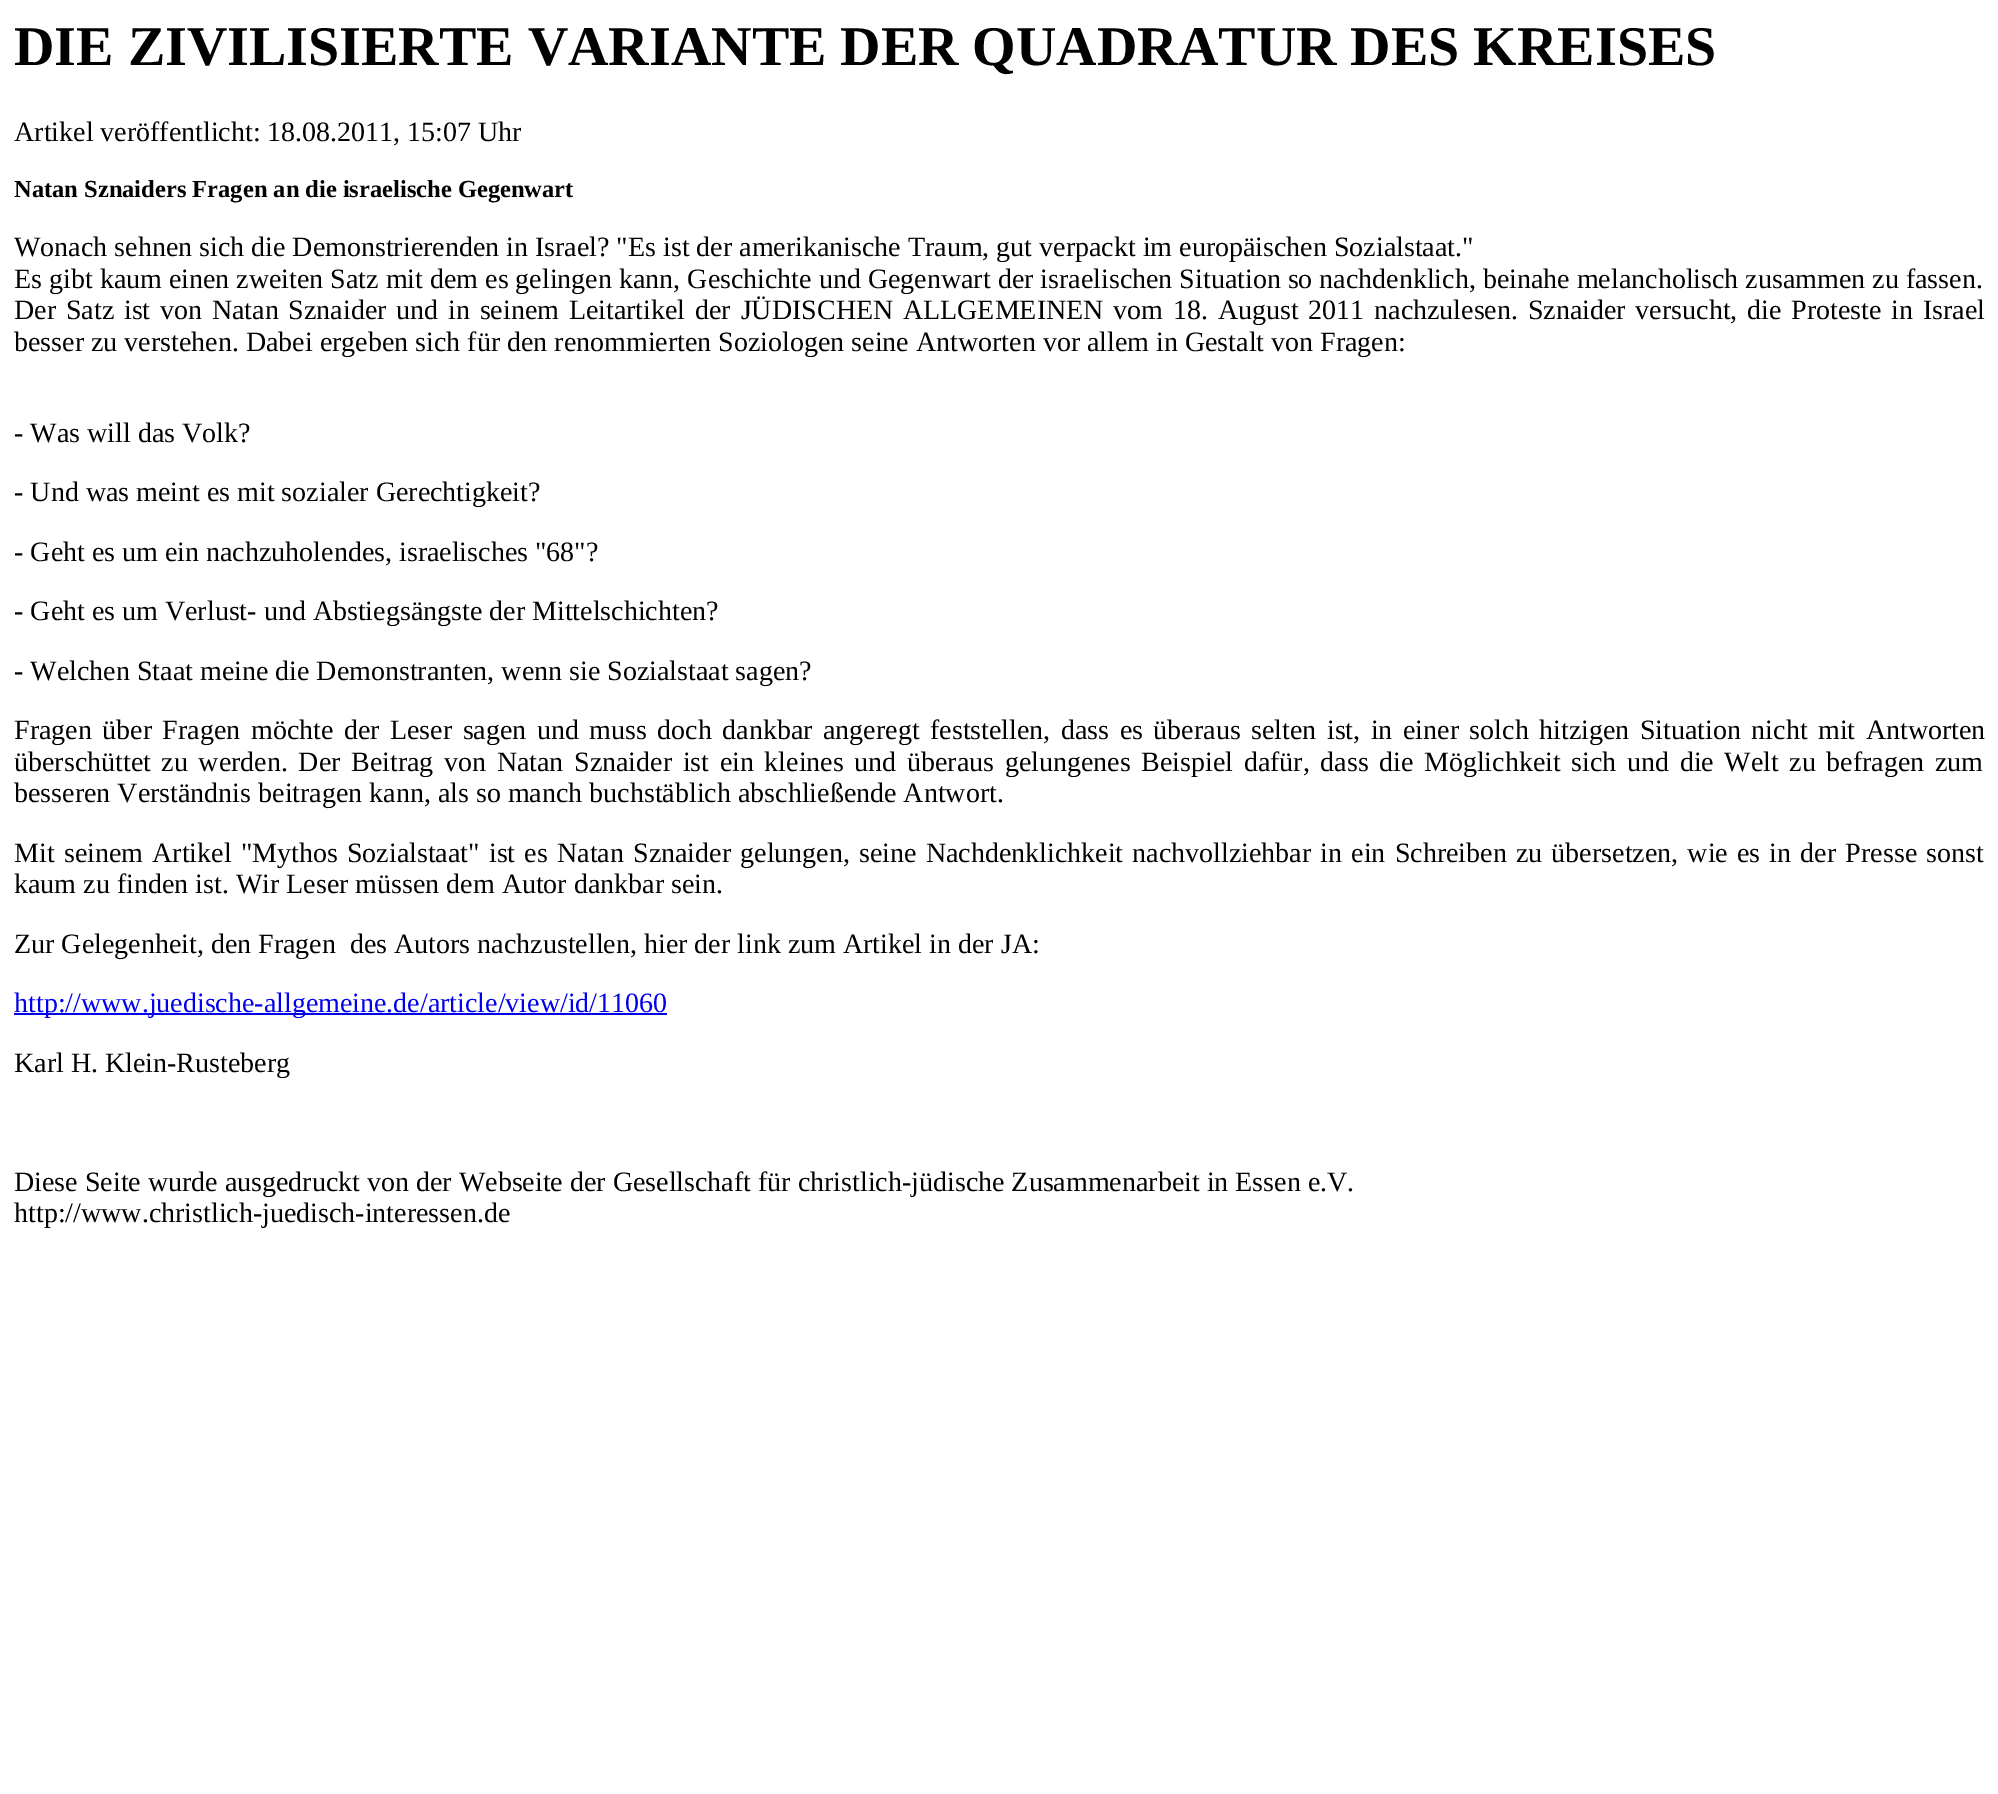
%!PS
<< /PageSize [1998 1794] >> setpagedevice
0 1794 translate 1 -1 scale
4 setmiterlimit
1 setgray
0 0 1998 1794 rectfill
/LiberationSerif-Bold [56 0 0 -56 0 0] selectfont
0 setgray
14 65 moveto (DIE ZIVILISIERTE VARIANTE DER QUADRATUR DES KREISES) show
/LiberationSerif-Regular [28 0 0 -28 0 0] selectfont
14 141 moveto (Artikel veröffentlicht: 18.08.2011, 15:07 Uhr) show
/LiberationSerif-Bold [24.5 0 0 -24.5 0 0] selectfont
14 197 moveto (Natan Sznaiders Fragen an die israelische Gegenwart) show
/LiberationSerif-Regular [28 0 0 -28 0 0] selectfont
14 256 moveto (Wonach sehnen sich die Demonstrierenden in Israel? "Es ist der amerikanische Traum, gut verpackt im europäischen Sozialstaat.") show
14 288 moveto (Es gibt kaum einen zweiten Satz mit dem es gelingen kann, Geschichte und Gegenwart der israelischen Situation so nachdenklich, beinahe melancholisch zusammen zu fassen.) show
14 319 moveto 2.8 0 32 (Der Satz ist von Natan Sznaider und in seinem Leitartikel der JÜDISCHEN ALLGEMEINEN vom 18. August 2011 nachzulesen. Sznaider versucht, die Proteste in Israel) widthshow
14 351 moveto (besser zu verstehen. Dabei ergeben sich für den renommierten Soziologen seine Antworten vor allem in Gestalt von Fragen:) show
14 442 moveto (- Was will das Volk?) show
14 501 moveto (- Und was meint es mit sozialer Gerechtigkeit?) show
14 561 moveto (- Geht es um ein nachzuholendes, israelisches "68"?) show
14 620 moveto (- Geht es um Verlust- und Abstiegsängste der Mittelschichten?) show
14 680 moveto (- Welchen Staat meine die Demonstranten, wenn sie Sozialstaat sagen?) show
14 739 moveto 3.5 0 32 (Fragen über Fragen möchte der Leser sagen und muss doch dankbar angeregt feststellen, dass es überaus selten ist, in einer solch hitzigen Situation nicht mit Antworten) widthshow
14 771 moveto 3.6 0 32 (überschüttet zu werden. Der Beitrag von Natan Sznaider ist ein kleines und überaus gelungenes Beispiel dafür, dass die Möglichkeit sich und die Welt zu befragen zum) widthshow
14 802 moveto (besseren Verständnis beitragen kann, als so manch buchstäblich abschließende Antwort.) show
14 862 moveto 2.2 0 32 (Mit seinem Artikel "Mythos Sozialstaat" ist es Natan Sznaider gelungen, seine Nachdenklichkeit nachvollziehbar in ein Schreiben zu übersetzen, wie es in der Presse sonst) widthshow
14 893 moveto (kaum zu finden ist. Wir Leser müssen dem Autor dankbar sein.) show
14 953 moveto (Zur Gelegenheit, den Fragen  des Autors nachzustellen, hier der link zum Artikel in der JA:) show
0 0 0.933 setrgbcolor
14 1013 653 2 rectfill
14 1012 moveto (http://www.juedische-allgemeine.de/article/view/id/11060) show
0 setgray
14 1072 moveto (Karl H. Klein-Rusteberg) show
14 1191 moveto (Diese Seite wurde ausgedruckt von der Webseite der Gesellschaft für christlich-jüdische Zusammenarbeit in Essen e.V.) show
14 1222 moveto (http://www.christlich-juedisch-interessen.de) show
showpage
